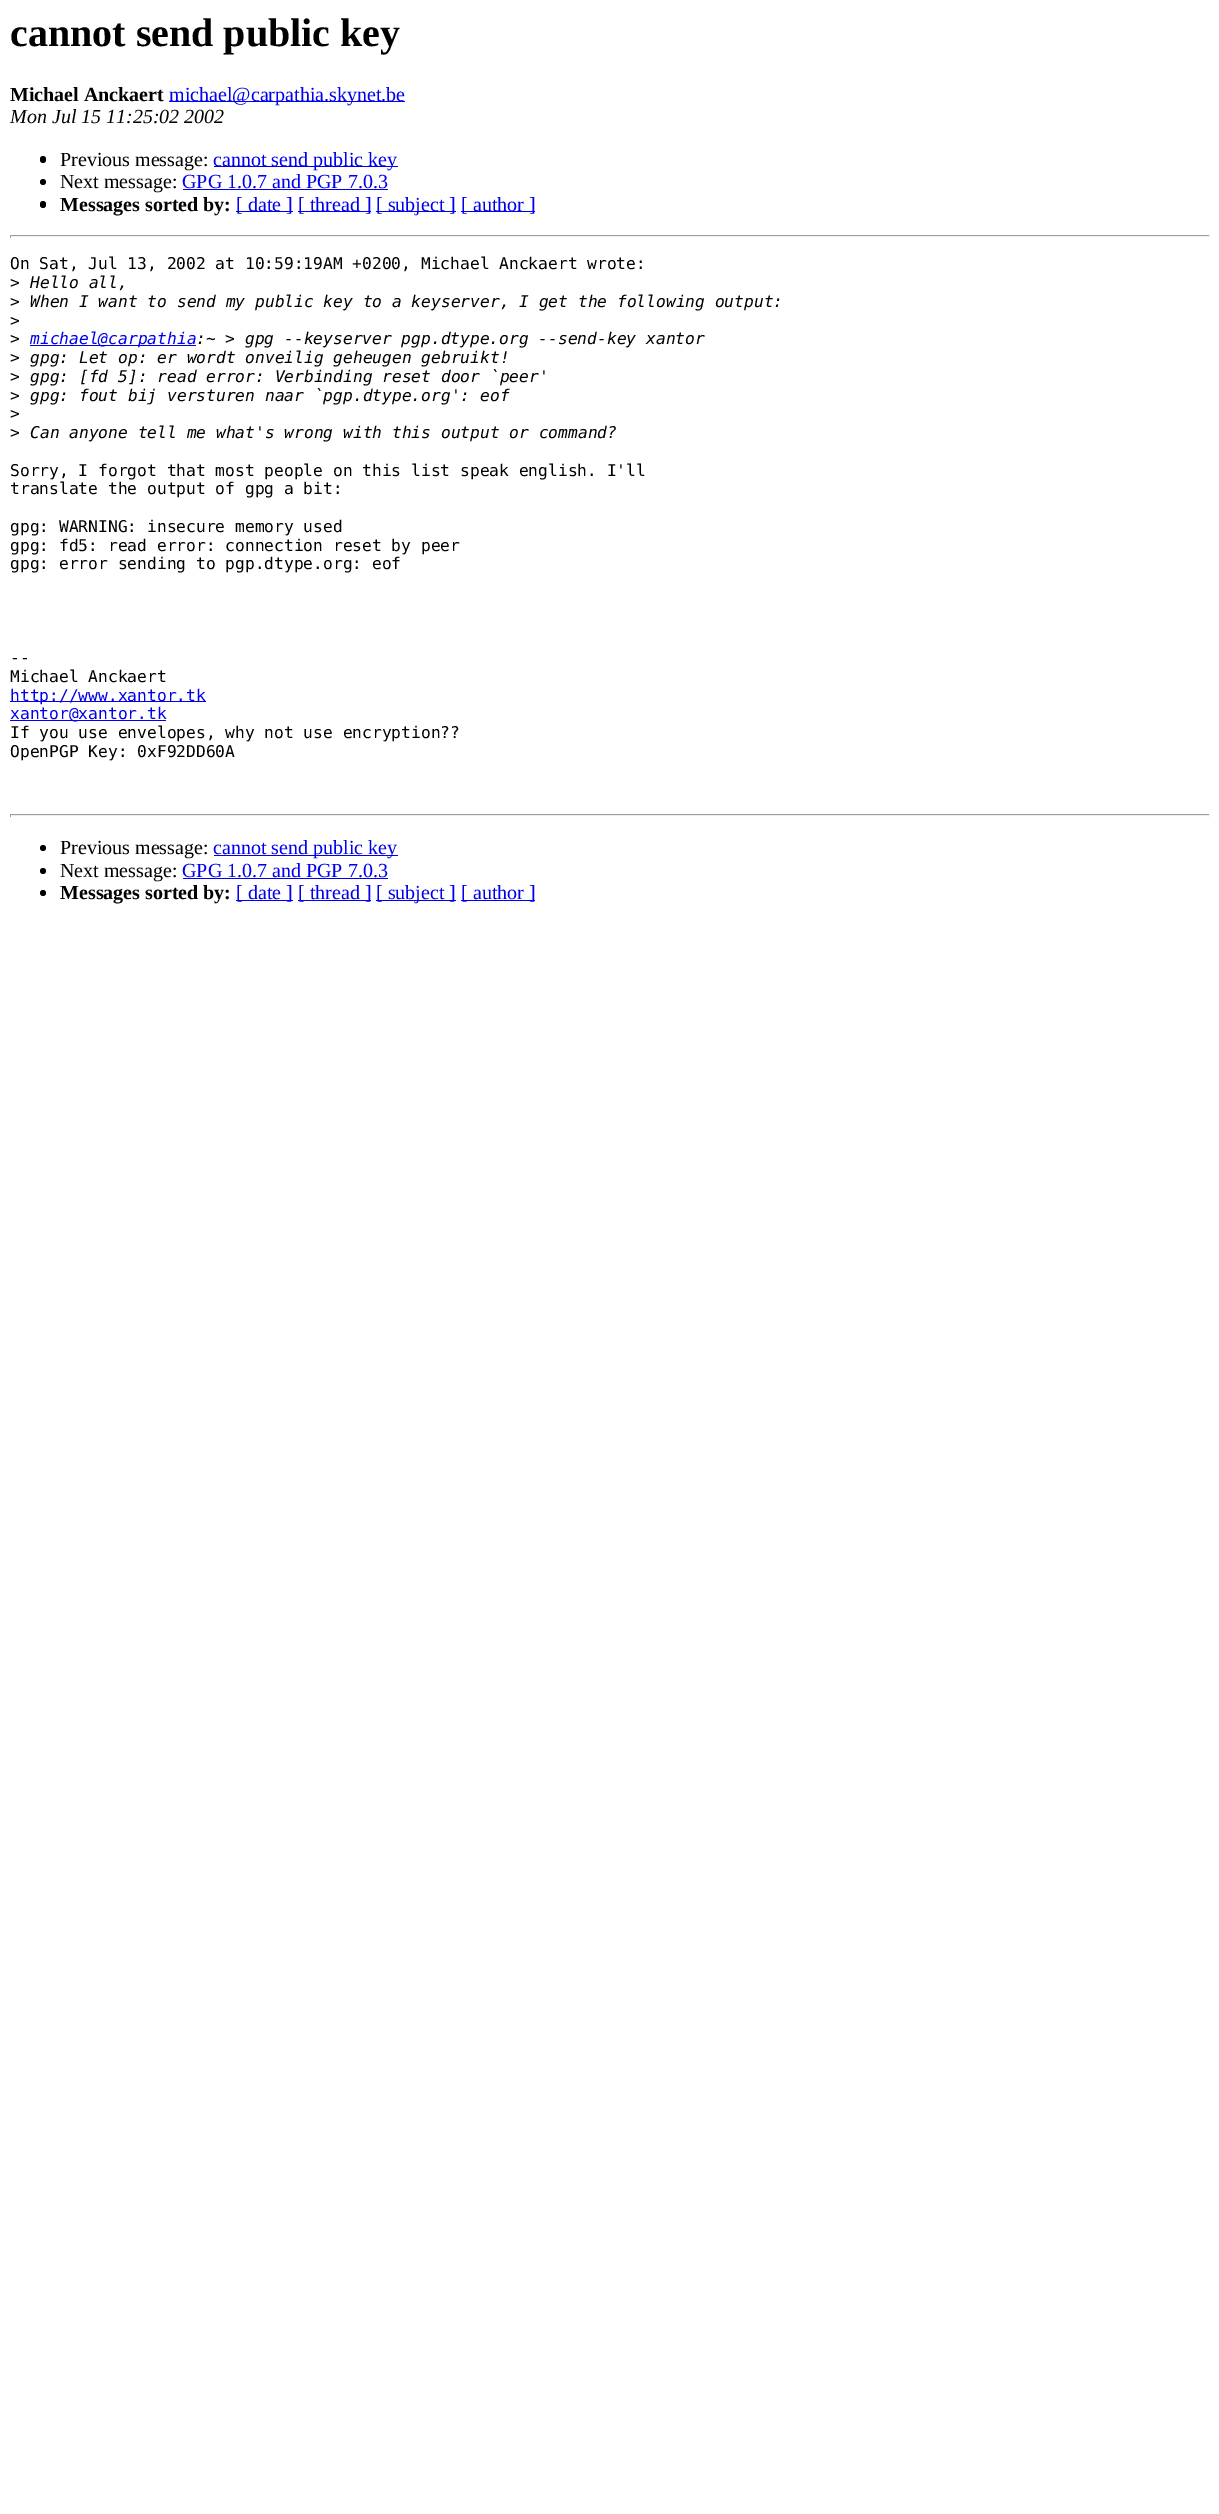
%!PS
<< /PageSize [1219 2514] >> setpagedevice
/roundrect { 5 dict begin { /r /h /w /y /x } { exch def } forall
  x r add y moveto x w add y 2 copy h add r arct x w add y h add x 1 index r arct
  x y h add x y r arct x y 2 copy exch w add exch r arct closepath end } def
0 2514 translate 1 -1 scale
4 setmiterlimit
1 setgray
0 0 1219 2514 rectfill
/LiberationSerif-Bold [40 0 0 -40 0 0] selectfont
0 setgray
10 46 moveto (cannot send public key) show
/LiberationSerif-Bold [20 0 0 -20 0 0] selectfont
10 101 moveto (Michael Anckaert) show
0 0 0.933 setrgbcolor
169 101 236 1 rectfill
/LiberationSerif-Regular [20 0 0 -20 0 0] selectfont
169 101 moveto (michael@carpathia.skynet.be) show
/LiberationSerif-Italic [20 0 0 -20 0 0] selectfont
0 setgray
10 123 moveto (Mon Jul 15 11:25:02 2002) show
40 156 6 7 3 roundrect fill
/LiberationSerif-Regular [20 0 0 -20 0 0] selectfont
60 166 moveto (Previous message:) show
0 0 0.933 setrgbcolor
214 166 184 1 rectfill
213 166 moveto (cannot send public key) show
0 setgray
newpath 43 182 3 0 360 arc closepath fill
60 188 moveto (Next message:) show
0 0 0.933 setrgbcolor
182 188 moveto (GPG 1.0.7 and PGP 7.0.3) show
183 189 205 1 rectfill
0 setgray
40 201 6 7 3 roundrect fill
/LiberationSerif-Bold [20 0 0 -20 0 0] selectfont
60 211 moveto (Messages sorted by:) show
0 0 0.933 setrgbcolor
236 211 57 1 rectfill
/LiberationSerif-Regular [20 0 0 -20 0 0] selectfont
236 211 moveto ([ date ]) show
298 211 73 1 rectfill
298 211 moveto ([ thread ]) show
376 211 80 1 rectfill
376 211 moveto ([ subject ]) show
461 211 74 1 rectfill
461 211 moveto ([ author ]) show
0.624 setgray
10 235 1200 1 rectfill
0.933 setgray
1209 235 1 3 rectfill
10 236 1200 1 rectfill
0.624 setgray
10 235 1 3 rectfill
/DejaVuSansMono-Regular [16.25 0 0 -16.25 0 0] selectfont
0 setgray
10 269 moveto (On Sat, Jul 13, 2002 at 10:59:19AM +0200, Michael Anckaert wrote:) show
10 288 moveto (>) show
/DejaVuSansMono-Italic [16.25 0 0 -16.25 0 0] selectfont
30 288 moveto (Hello all,) show
/DejaVuSansMono-Regular [16.25 0 0 -16.25 0 0] selectfont
10 307 moveto (>) show
/DejaVuSansMono-Italic [16.25 0 0 -16.25 0 0] selectfont
30 307 moveto (When I want to send my public key to a keyserver, I get the following output:) show
/DejaVuSansMono-Regular [16.25 0 0 -16.25 0 0] selectfont
10 326 moveto (>) show
10 344 moveto (>) show
0 0 0.933 setrgbcolor
30 345 166 1 rectfill
/DejaVuSansMono-Italic [16.25 0 0 -16.25 0 0] selectfont
30 344 moveto (michael@carpathia) show
0 setgray
196 344 moveto (:~ > gpg --keyserver pgp.dtype.org --send-key xantor) show
/DejaVuSansMono-Regular [16.25 0 0 -16.25 0 0] selectfont
10 363 moveto (>) show
/DejaVuSansMono-Italic [16.25 0 0 -16.25 0 0] selectfont
30 363 moveto (gpg: Let op: er wordt onveilig geheugen gebruikt!) show
/DejaVuSansMono-Regular [16.25 0 0 -16.25 0 0] selectfont
10 382 moveto (>) show
/DejaVuSansMono-Italic [16.25 0 0 -16.25 0 0] selectfont
30 382 moveto (gpg: [fd 5]: read error: Verbinding reset door `peer') show
/DejaVuSansMono-Regular [16.25 0 0 -16.25 0 0] selectfont
10 401 moveto (>) show
/DejaVuSansMono-Italic [16.25 0 0 -16.25 0 0] selectfont
30 401 moveto (gpg: fout bij versturen naar `pgp.dtype.org': eof) show
/DejaVuSansMono-Regular [16.25 0 0 -16.25 0 0] selectfont
10 419 moveto (>) show
10 438 moveto (>) show
/DejaVuSansMono-Italic [16.25 0 0 -16.25 0 0] selectfont
30 438 moveto (Can anyone tell me what's wrong with this output or command?) show
/DejaVuSansMono-Regular [16.25 0 0 -16.25 0 0] selectfont
10 476 moveto (Sorry, I forgot that most people on this list speak english. I'll) show
10 494 moveto (translate the output of gpg a bit:) show
10 532 moveto (gpg: WARNING: insecure memory used) show
10 551 moveto (gpg: fd5: read error: connection reset by peer) show
10 569 moveto (gpg: error sending to pgp.dtype.org: eof) show
10 663 moveto (--) show
10 682 moveto (Michael Anckaert) show
0 0 0.933 setrgbcolor
10 701 196 1 rectfill
10 701 moveto (http://www.xantor.tk) show
10 720 156 1 rectfill
10 719 moveto (xantor@xantor.tk) show
0 setgray
10 738 moveto (If you use envelopes, why not use encryption??) show
10 757 moveto (OpenPGP Key: 0xF92DD60A) show
0.624 setgray
10 814 1200 1 rectfill
0.933 setgray
1209 814 1 3 rectfill
10 815 1200 1 rectfill
0.624 setgray
10 814 1 3 rectfill
0 setgray
newpath 43 848 3 0 360 arc closepath fill
/LiberationSerif-Regular [20 0 0 -20 0 0] selectfont
60 854 moveto (Previous message:) show
0 0 0.933 setrgbcolor
214 855 184 1 rectfill
213 854 moveto (cannot send public key) show
0 setgray
newpath 43 871 3 0 360 arc closepath fill
60 877 moveto (Next message:) show
0 0 0.933 setrgbcolor
182 877 moveto (GPG 1.0.7 and PGP 7.0.3) show
183 878 205 1 rectfill
0 setgray
newpath 43 893 3 0 360 arc closepath fill
/LiberationSerif-Bold [20 0 0 -20 0 0] selectfont
60 899 moveto (Messages sorted by:) show
0 0 0.933 setrgbcolor
236 900 57 1 rectfill
/LiberationSerif-Regular [20 0 0 -20 0 0] selectfont
236 899 moveto ([ date ]) show
298 900 73 1 rectfill
298 899 moveto ([ thread ]) show
376 900 80 1 rectfill
376 899 moveto ([ subject ]) show
461 900 74 1 rectfill
461 899 moveto ([ author ]) show
showpage
